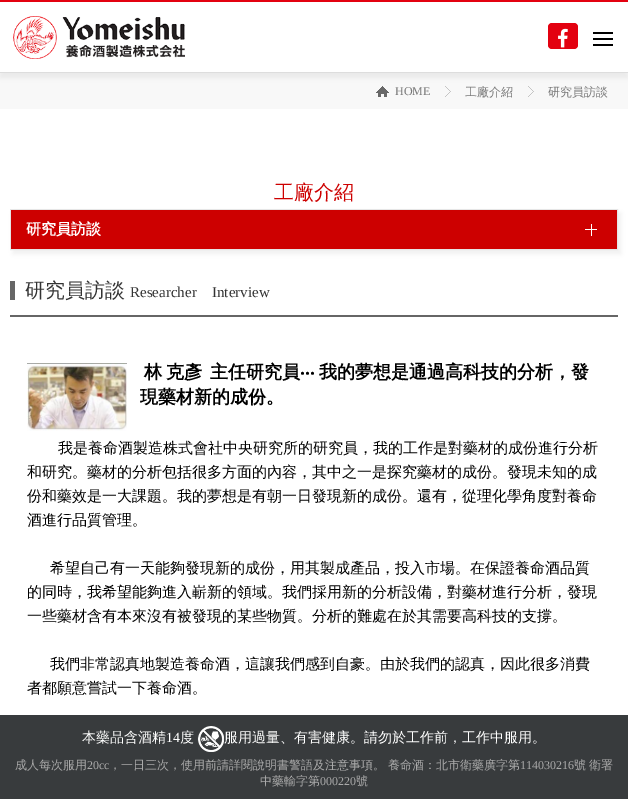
%!PS
<< /PageSize [628 799] /PageUsesTransparency true >> setpagedevice
/alpha { dup .setfillconstantalpha .setstrokeconstantalpha } def
/roundrect { 5 dict begin { /r /h /w /y /x } { exch def } forall
  x r add y moveto x w add y 2 copy h add r arct x w add y h add x 1 index r arct
  x y h add x y r arct x y 2 copy exch w add exch r arct closepath end } def
/shadow { 12 dict begin { /a /b /q /h /w /y /x } { exch def } forall gsave /was 0 def
  9 -2 -9 { dup b mul 4 div /e exch def 1 sub .425 mul 2.718 exch exp 1 add a .99 .min exch div /now exch def
    1 1 now sub 1 was sub div sub alpha /was now def
    w h .min e 2 mul add 0 gt { x e sub y e sub w e 2 mul add h e 2 mul add
      q e add b .6 mul add w h .min 2 div e add .min 0 .max roundrect fill } if } for grestore end } def
/picture { 5 dict begin { /h /w /y /x /name } { exch def } forall
  gsave x y translate w h scale
  w h 8 [w 0 0 h 0 0] name (r) file false 3 colorimage grestore end } def
0 .pushpdf14devicefilter
0 799 translate 1 -1 scale
4 setmiterlimit
0.973 setgray
0 0 628 799 rectfill
(img3.rgb) 376 86 13 11 picture
(img4.rgb) 445 86 6 11 picture
(img4.rgb) 528 86 6 11 picture
0 setgray
0 5 628 73 0 2.5 0.05 shadow
1 setgray
0 2 628 70 rectfill
0.89 0.004 0.063 setrgbcolor
0 0 628 2 rectfill
0.867 setgray
0 72 628 1 rectfill
(img1.rgb) 13 16 172 43 picture
0.89 0.004 0.063 setrgbcolor
548 23 30 26 4 roundrect fill
(img2.rgb) 558 28 10 20 picture
0 setgray
593 32 20 2 rectfill
593 38 20 2 rectfill
593 44 20 2 rectfill
/LiberationSerif-Regular [12 0 0 -12 0 0] selectfont
0.467 setgray
395 95 moveto (HOME) show
/WenQuanYiZenHei-Medium [12 0 0 -12 0 0] selectfont
465 96 moveto (工廠介紹) show
548 96 moveto (研究員訪談) show
1 setgray
0 109 628 606 rectfill
/WenQuanYiZenHei-Medium [20 0 0 -20 0 0] selectfont
0.804 0 0 setrgbcolor
274 199 moveto (工廠介紹) show
0 setgray
13 213 608 41 0 2.5 0.05 shadow
0.902 setgray
10.5 209.5 607 40 rectstroke
0.804 0 0 setrgbcolor
11 210 606 39 rectfill
/WenQuanYiZenHei-Bold [15 0 0 -15 0 0] selectfont
1 setgray
26 234 moveto (研究員訪談) show
585 229 12 1 rectfill
591 224 1 12 rectfill
0.4 setgray
10 315 608 2 rectfill
10 281 5 19 rectfill
/WenQuanYiZenHei-Medium [20 0 0 -20 0 0] selectfont
0.2 setgray
25 297 moveto (研究員訪談) show
/LiberationSerif-Regular [15 0 0 -15 0 0] selectfont
130 297 moveto (Researcher) show
212 297 moveto (Interview) show
(img5.rgb) 27 363 100 68 picture
/WenQuanYiZenHei-Bold [18 0 0 -18 0 0] selectfont
0 setgray
144 378 moveto -1 0 32 (林 克彥) widthshow
210 378 moveto (主任研究員) show
/NotoSans-Bold [18 0 0 -18 0 0] selectfont
300 378 moveto (‧‧‧) show
/WenQuanYiZenHei-Bold [18 0 0 -18 0 0] selectfont
319 378 moveto (我的夢想是通過高科技的分析，發) show
140 403 moveto (現藥材新的成份。) show
/WenQuanYiZenHei-Medium [15 0 0 -15 0 0] selectfont
58 453 moveto (我是養命酒製造株式會社中央研究所的研究員，我的工作是對藥材的成份進行分析) show
27 477 moveto (和研究。藥材的分析包括很多方面的內容，其中之一是探究藥材的成份。發現未知的成) show
27 501 moveto (份和藥效是一大課題。我的夢想是有朝一日發現新的成份。還有，從理化學角度對養命) show
27 525 moveto (酒進行品質管理。) show
50 573 moveto (希望自己有一天能夠發現新的成份，用其製成產品，投入市場。在保證養命酒品質) show
27 597 moveto (的同時，我希望能夠進入嶄新的領域。我們採用新的分析設備，對藥材進行分析，發現) show
27 621 moveto (一些藥材含有本來沒有被發現的某些物質。分析的難處在於其需要高科技的支撐。) show
50 669 moveto (我們非常認真地製造養命酒，這讓我們感到自豪。由於我們的認真，因此很多消費) show
27 693 moveto (者都願意嘗試一下養命酒。) show
0.22 0.231 0.239 setrgbcolor
0 715 628 84 rectfill
/WenQuanYiZenHei-Medium [14 0 0 -14 0 0] selectfont
1 setgray
82 742 moveto (本藥品含酒精) show
/LiberationSerif-Regular [14 0 0 -14 0 0] selectfont
166 742 moveto (14) show
/WenQuanYiZenHei-Medium [14 0 0 -14 0 0] selectfont
180 742 moveto (度) show
(img6.rgb) 197 726 27 26 picture
224 742 moveto (服用過量、有害健康。請勿於工作前，工作中服用。) show
/WenQuanYiZenHei-Medium [12 0 0 -12 0 0] selectfont
0.667 setgray
15 769 moveto (成人每次服用) show
/LiberationSerif-Regular [12 0 0 -12 0 0] selectfont
87 769 moveto (20cc) show
/WenQuanYiZenHei-Medium [12 0 0 -12 0 0] selectfont
109 769 moveto -1 0 32 (，一日三次，使用前請詳閱說明書警語及注意事項。 養命酒：北市衛藥廣字第) widthshow
/LiberationSerif-Regular [12 0 0 -12 0 0] selectfont
520 769 moveto (114030216) show
/WenQuanYiZenHei-Medium [12 0 0 -12 0 0] selectfont
574 769 moveto -1 0 32 (號 衛署) widthshow
260 785 moveto (中藥輸字第) show
/LiberationSerif-Regular [12 0 0 -12 0 0] selectfont
320 785 moveto (000220) show
/WenQuanYiZenHei-Medium [12 0 0 -12 0 0] selectfont
356 785 moveto (號) show
.poppdf14devicefilter showpage
